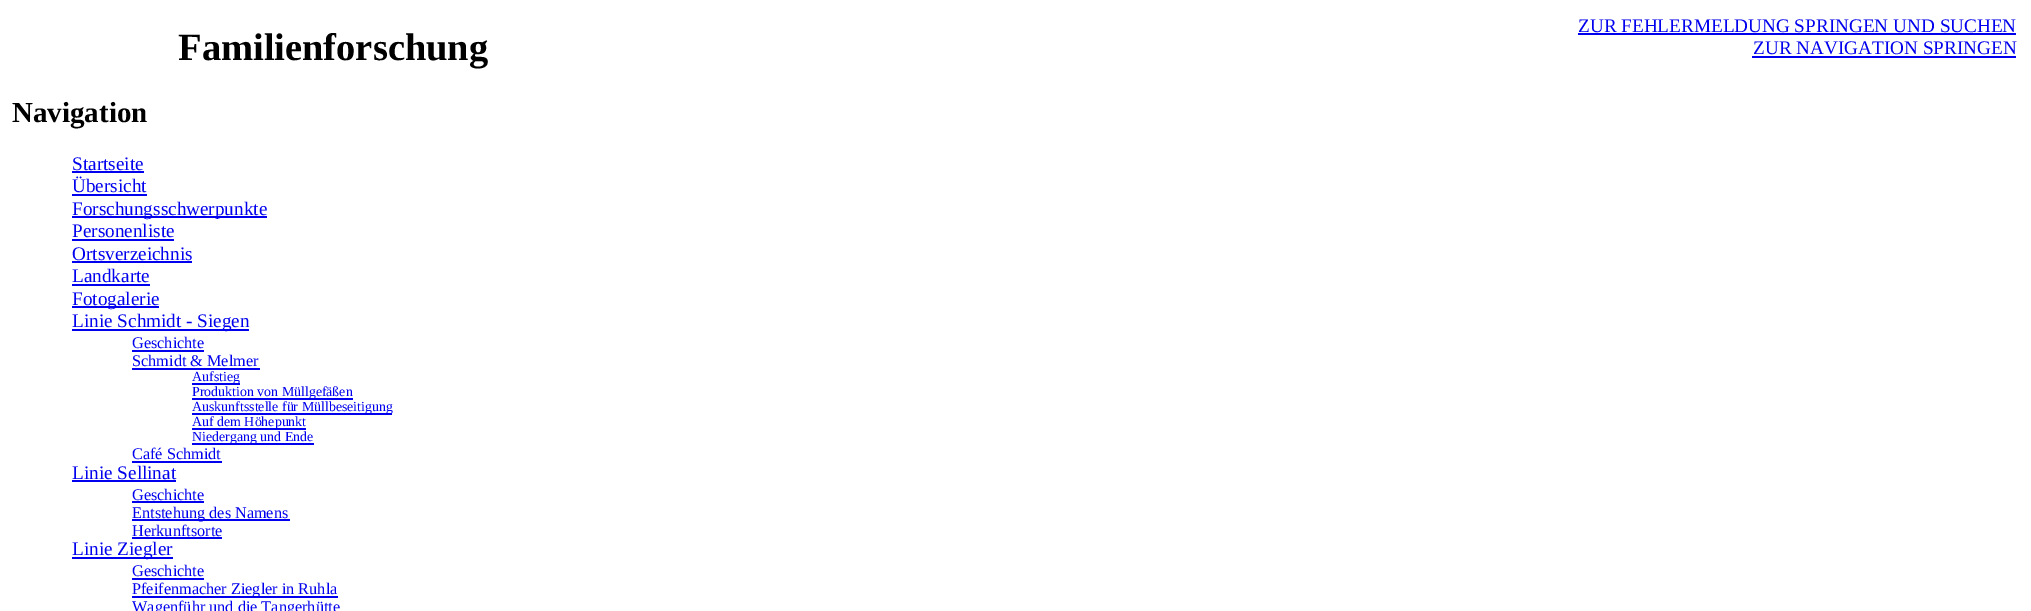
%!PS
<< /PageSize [2031 611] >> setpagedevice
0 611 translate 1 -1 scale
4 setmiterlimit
1 setgray
0 0 2031 611 rectfill
/LiberationSerif-Bold [38.5 0 0 -38.5 0 0] selectfont
0 setgray
178 60 moveto (Familienforschung) show
/LiberationSerif-Regular [19.2 0 0 -19.2 0 0] selectfont
0 0 0.933 setrgbcolor
1578 32 moveto (ZUR FEHLERMELDUNG SPRINGEN UND SUCHEN) show
1578 33 438 2 rectfill
1753 54 moveto (ZUR NAVIGATION SPRINGEN) show
1752 56 264 2 rectfill
/LiberationSerif-Bold [29 0 0 -29 0 0] selectfont
0 setgray
12 122 moveto (Navigation) show
/LiberationSerif-Regular [19.2 0 0 -19.2 0 0] selectfont
0 0 0.933 setrgbcolor
72 170 moveto (Startseite) show
72 171 72 2 rectfill
72 192 moveto (Übersicht) show
72 194 75 2 rectfill
72 216 195 2 rectfill
72 215 moveto (Forschungsschwerpunkte) show
72 237 moveto (Personenliste) show
72 239 102 2 rectfill
72 260 moveto (Ortsverzeichnis) show
72 261 120 2 rectfill
72 282 moveto (Landkarte) show
72 284 78 2 rectfill
72 306 87 2 rectfill
72 305 moveto (Fotogalerie) show
72 329 177 2 rectfill
72 327 moveto (Linie Schmidt - Siegen) show
/LiberationSerif-Regular [16.25 0 0 -16.25 0 0] selectfont
132 348 moveto (Geschichte) show
132 350 72 2 rectfill
132 366 moveto (Schmidt & Melmer) show
132 368 128 2 rectfill
192 383 48 2 rectfill
/LiberationSerif-Regular [13.9 0 0 -13.9 0 0] selectfont
192 381 moveto (Aufstieg) show
192 398 161 2 rectfill
192 396 moveto (Produktion von Müllgefäßen) show
192 413 200 2 rectfill
192 411 moveto (Auskunftsstelle für Müllbeseitigung) show
192 428 114 2 rectfill
192 426 moveto (Auf dem Höhepunkt) show
192 443 122 2 rectfill
192 441 moveto (Niedergang und Ende) show
/LiberationSerif-Regular [16.25 0 0 -16.25 0 0] selectfont
132 459 moveto (Café Schmidt) show
132 461 90 2 rectfill
/LiberationSerif-Regular [19.2 0 0 -19.2 0 0] selectfont
72 479 moveto (Linie Sellinat) show
72 480 104 2 rectfill
/LiberationSerif-Regular [16.25 0 0 -16.25 0 0] selectfont
132 500 moveto (Geschichte) show
132 501 72 2 rectfill
132 519 158 2 rectfill
132 518 moveto (Entstehung des Namens) show
132 536 moveto (Herkunftsorte) show
132 537 90 2 rectfill
72 557 101 2 rectfill
/LiberationSerif-Regular [19.2 0 0 -19.2 0 0] selectfont
72 555 moveto (Linie Ziegler) show
/LiberationSerif-Regular [16.25 0 0 -16.25 0 0] selectfont
132 576 moveto (Geschichte) show
132 578 72 2 rectfill
132 596 206 2 rectfill
132 594 moveto (Pfeifenmacher Ziegler in Ruhla) show
132 612 moveto (Wagenführ und die Tangerhütte) show
showpage
